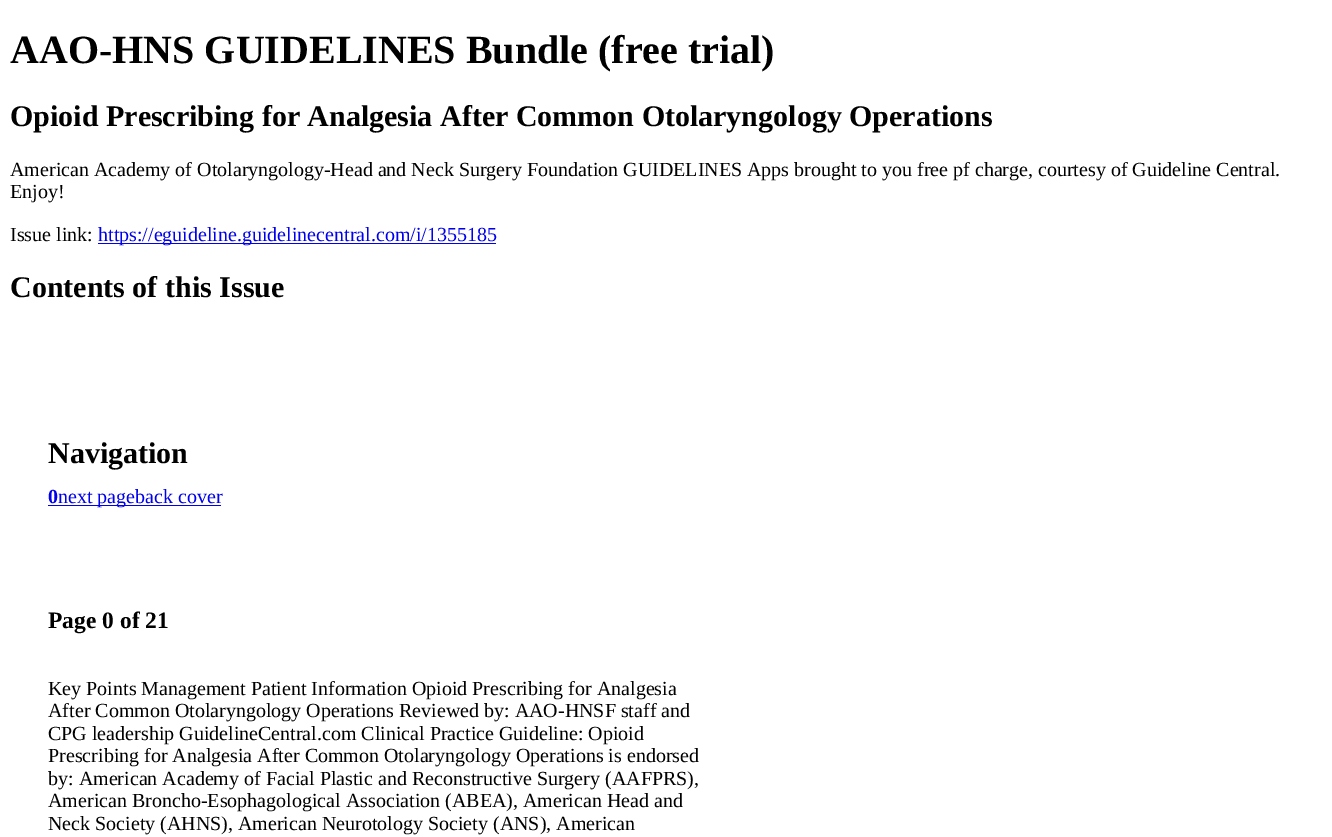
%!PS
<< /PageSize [1332 837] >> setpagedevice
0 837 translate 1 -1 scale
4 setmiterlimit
1 setgray
0 0 1332 837 rectfill
/LiberationSerif-Bold [40 0 0 -40 0 0] selectfont
0 setgray
10 63 moveto (AAO-HNS GUIDELINES Bundle \(free trial\)) show
/LiberationSerif-Bold [30 0 0 -30 0 0] selectfont
10 126 moveto (Opioid Prescribing for Analgesia After Common Otolaryngology Operations) show
/LiberationSerif-Regular [20 0 0 -20 0 0] selectfont
10 176 moveto (American Academy of Otolaryngology-Head and Neck Surgery Foundation GUIDELINES Apps brought to you free pf charge, courtesy of Guideline Central.) show
10 198 moveto (Enjoy!) show
10 241 moveto (Issue link:) show
0 0 0.933 setrgbcolor
98 243 398 1 rectfill
98 241 moveto (https://eguideline.guidelinecentral.com/i/1355185) show
/LiberationSerif-Bold [30 0 0 -30 0 0] selectfont
0 setgray
10 297 moveto (Contents of this Issue) show
48 463 moveto (Navigation) show
/LiberationSerif-Bold [20 0 0 -20 0 0] selectfont
0 0 0.933 setrgbcolor
48 503 moveto (0) show
48 505 173 1 rectfill
/LiberationSerif-Regular [20 0 0 -20 0 0] selectfont
58 503 moveto (next pageback cover) show
/LiberationSerif-Bold [23.5 0 0 -23.5 0 0] selectfont
0 setgray
48 628 moveto (Page 0 of 21) show
/LiberationSerif-Regular [20 0 0 -20 0 0] selectfont
48 695 moveto (Key Points Management Patient Information Opioid Prescribing for Analgesia) show
48 717 moveto (After Common Otolaryngology Operations Reviewed by: AAO-HNSF staff and) show
48 740 moveto (CPG leadership GuidelineCentral.com Clinical Practice Guideline: Opioid) show
48 762 moveto (Prescribing for Analgesia After Common Otolaryngology Operations is endorsed) show
48 785 moveto (by: American Academy of Facial Plastic and Reconstructive Surgery \(AAFPRS\),) show
48 807 moveto (American Broncho-Esophagological Association \(ABEA\), American Head and) show
48 830 moveto (Neck Society \(AHNS\), American Neurotology Society \(ANS\), American) show
showpage
